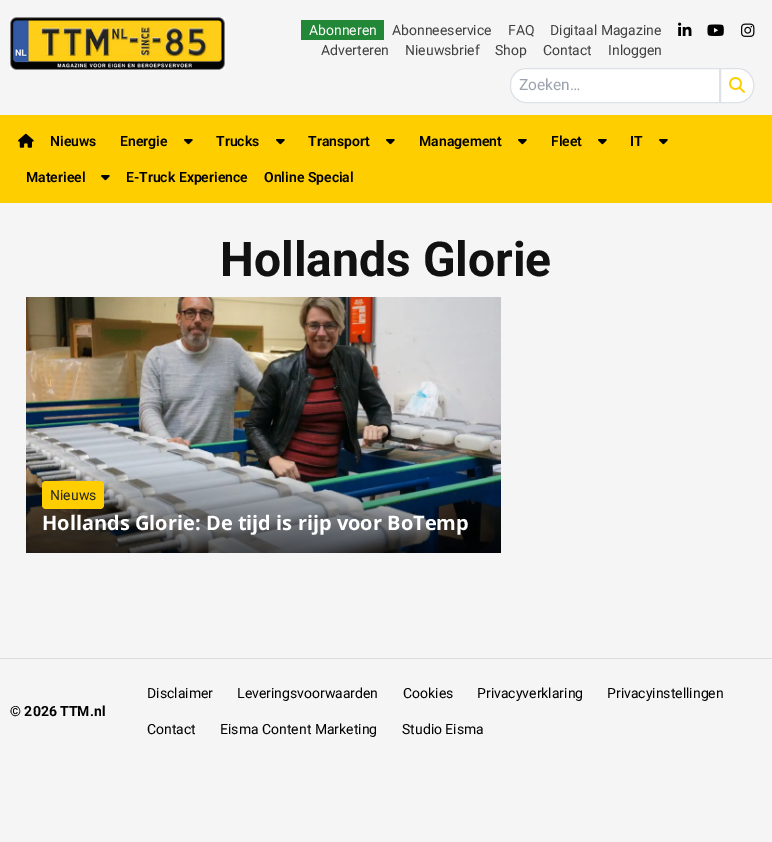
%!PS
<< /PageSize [772 842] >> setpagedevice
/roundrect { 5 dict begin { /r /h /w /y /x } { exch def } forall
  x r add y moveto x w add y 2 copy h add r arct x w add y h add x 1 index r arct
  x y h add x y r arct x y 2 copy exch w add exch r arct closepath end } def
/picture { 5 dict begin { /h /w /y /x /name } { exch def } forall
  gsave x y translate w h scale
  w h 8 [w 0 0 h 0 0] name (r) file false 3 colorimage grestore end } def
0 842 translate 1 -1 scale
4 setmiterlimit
0.961 setgray
0 0 772 842 rectfill
(img1.rgb) 10 17 215 53 picture
0.133 0.529 0.212 setrgbcolor
301 20 83 20 rectfill
/Roboto-Regular [14 0 0 -14 0 0] selectfont
1 setgray
309 35 moveto (Abonneren) show
0.251 setgray
392 35 moveto (Abonneeservice) show
508 35 moveto (FAQ) show
550 35 moveto (Digitaal Magazine) show
321 55 moveto (Adverteren) show
405 55 moveto (Nieuwsbrief) show
495 55 moveto (Shop) show
543 55 moveto (Contact) show
608 55 moveto (Inloggen) show
(img2.rgb) 678 22 14 14 picture
(img3.rgb) 707 24 17 12 picture
(img4.rgb) 741 23 14 14 picture
1 setgray
newpath 526 68.5 moveto 719.5 68.5 lineto 719.5 102.5 lineto 526 102.5 lineto 517.5 102.5 510.5 95.5 510.5 87 curveto 510.5 84 lineto 510.5 75.5 517.5 68.5 526 68.5 curveto closepath gsave fill grestore
0.871 0.886 0.902 setrgbcolor
stroke
/Roboto-Regular [15.5 0 0 -15.5 0 0] selectfont
0.612 0.639 0.686 setrgbcolor
519 90 moveto (Zoeken…) show
1 setgray
newpath 720.5 68.5 moveto 738 68.5 lineto 746.5 68.5 753.5 75.5 753.5 84 curveto 753.5 87 lineto 753.5 95.5 746.5 102.5 738 102.5 curveto 720.5 102.5 lineto closepath gsave fill grestore
0.871 0.886 0.902 setrgbcolor
stroke
(img5.rgb) 729 77 16 16 picture
0.996 0.808 0 setrgbcolor
0 115 772 88 rectfill
(img6.rgb) 18 133 16 15 picture
/Roboto-SemiBold [14 0 0 -14 0 0] selectfont
0 setgray
50 146 moveto (Nieuws) show
120 146 moveto (Energie) show
(img7.rgb) 184 139 9 6 picture
216 146 moveto (Trucks) show
(img7.rgb) 276 139 9 6 picture
308 146 moveto (Transport) show
(img7.rgb) 386 139 9 6 picture
419 146 moveto (Management) show
(img7.rgb) 518 139 9 6 picture
551 146 moveto (Fleet) show
(img7.rgb) 598 139 9 6 picture
630 146 moveto (IT) show
(img7.rgb) 659 139 9 6 picture
26 182 moveto (Materieel) show
(img7.rgb) 101 175 9 6 picture
126 182 moveto (E-Truck Experience) show
264 182 moveto (Online Special) show
/Roboto-Bold [48 0 0 -48 0 0] selectfont
0.067 setgray
220 276 moveto (Hollands Glorie) show
(img8.rgb) 26 297 475 256 picture
0.996 0.808 0 setrgbcolor
42 481 62 28 4 roundrect fill
/Roboto-Regular [14 0 0 -14 0 0] selectfont
0.149 setgray
50 500 moveto (Nieuws) show
/OpenSans-Bold [20 0 0 -20 0 0] selectfont
1 setgray
42 530 moveto (Hollands Glorie: De tijd is rijp voor BoTemp) show
0.867 setgray
0 658 772 1 rectfill
/Roboto-Bold [14 0 0 -14 0 0] selectfont
0 setgray
10 716 moveto (© 2026 TTM.nl) show
/Roboto-Regular [14 0 0 -14 0 0] selectfont
147 698 moveto (Disclaimer) show
237 698 moveto (Leveringsvoorwaarden) show
403 698 moveto (Cookies) show
477 698 moveto (Privacyverklaring) show
607 698 moveto (Privacyinstellingen) show
147 734 moveto (Contact) show
220 734 moveto (Eisma Content Marketing) show
402 734 moveto (Studio Eisma) show
showpage
